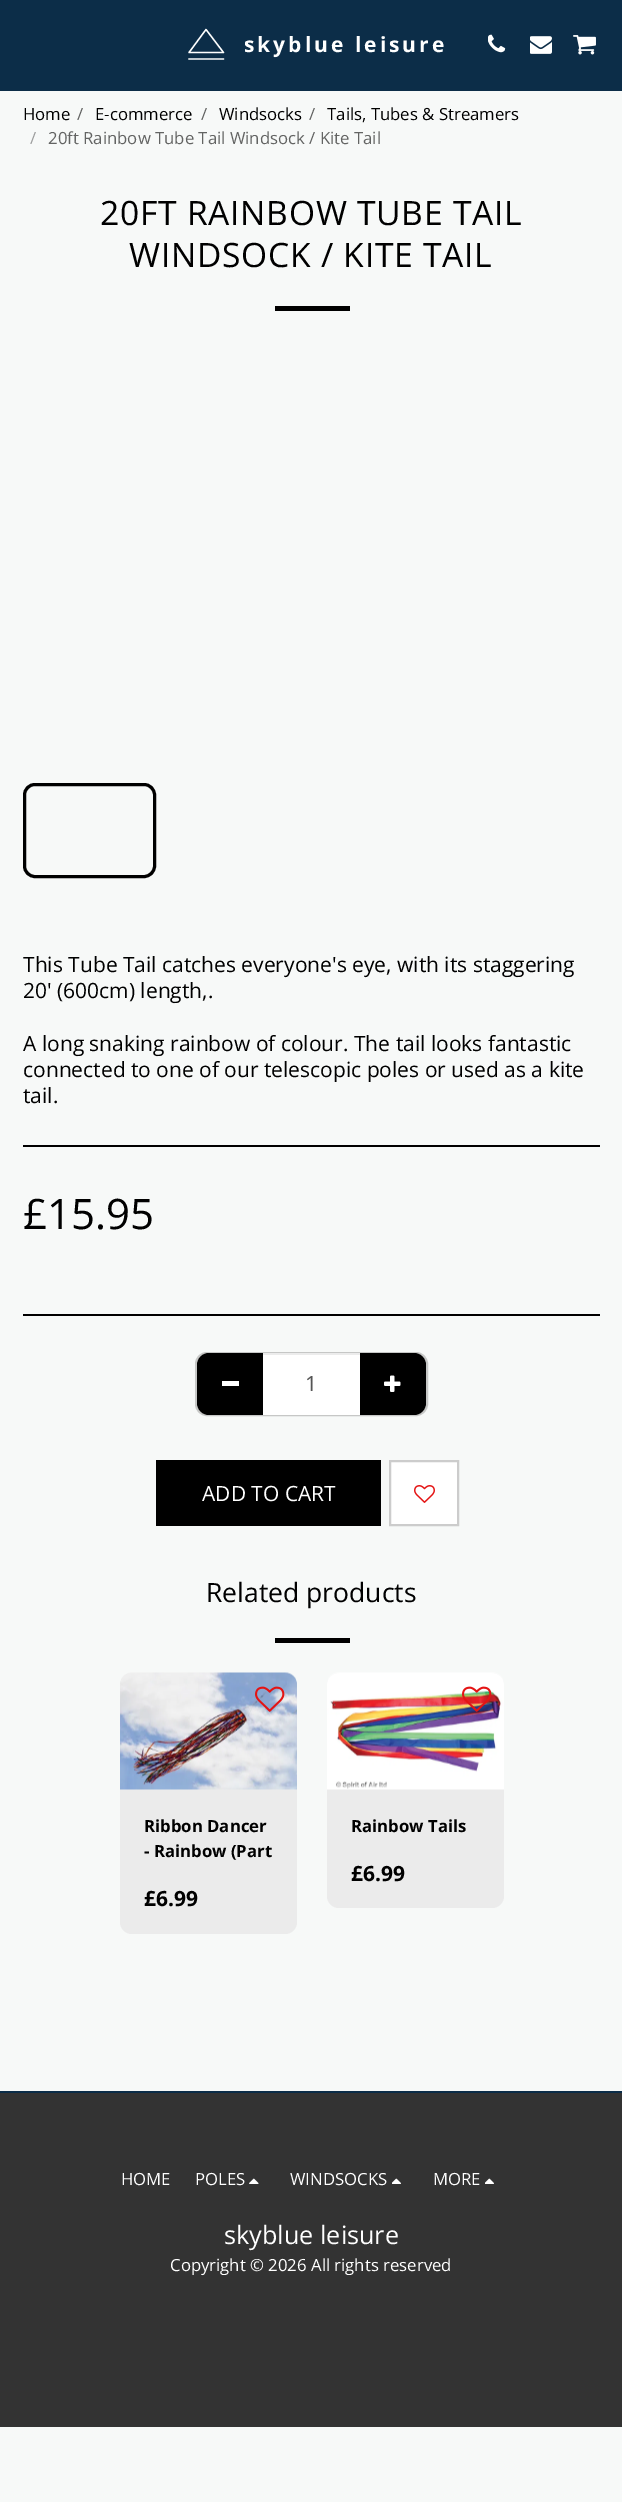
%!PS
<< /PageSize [622 2502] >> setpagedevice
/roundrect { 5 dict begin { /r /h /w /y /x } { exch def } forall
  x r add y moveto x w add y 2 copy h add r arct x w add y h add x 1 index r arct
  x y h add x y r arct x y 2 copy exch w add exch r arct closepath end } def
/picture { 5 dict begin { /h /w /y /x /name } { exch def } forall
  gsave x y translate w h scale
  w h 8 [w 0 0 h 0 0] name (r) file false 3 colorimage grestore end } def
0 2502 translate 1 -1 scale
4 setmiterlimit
0.969 0.976 0.973 setrgbcolor
0 0 622 2502 rectfill
0.047 0.176 0.282 setrgbcolor
0 0 622 91 rectfill
1 setgray
1.3 setlinewidth
1 setlinecap
1 setlinejoin
newpath 189 52.5 moveto 223.5 52.5 lineto 206 29.5 lineto closepath 223.5 59 moveto 189 59 lineto stroke
gsave
245 30 202 30 rectclip
/OpenSans-Bold [21 0 0 -21 0 0] selectfont
244 52 moveto 3 0 (skyblue leisure) ashow
grestore
(img1.rgb) 488 34 18 19 picture
(img2.rgb) 530 36 22 18 picture
(img3.rgb) 573 35 23 20 picture
/OpenSans-Regular [16.75 0 0 -16.75 0 0] selectfont
0 setgray
23 120 moveto (Home) show
0.388 0.392 0.388 setrgbcolor
77 120 moveto (/) show
0 setgray
95 120 moveto (E-commerce) show
0.388 0.392 0.388 setrgbcolor
201 120 moveto (/) show
0 setgray
219 120 moveto (Windsocks) show
0.388 0.392 0.388 setrgbcolor
309 120 moveto (/) show
0 setgray
327 120 moveto (Tails, Tubes & Streamers) show
0.62 0.624 0.624 setrgbcolor
30 144 moveto (/) show
0.388 0.392 0.388 setrgbcolor
48 144 moveto (20ft Rainbow Tube Tail Windsock / Kite Tail) show
/OpenSans-Regular [33.6 0 0 -33.6 0 0] selectfont
0 setgray
100 225 moveto 0.75 0 (20FT RAINBOW TUBE TAIL) ashow
129 267 moveto 0.75 0 (WINDSOCK / KITE TAIL) ashow
275 306 75 5 rectfill
3 setlinewidth
0 setlinecap
0 setlinejoin
24.5 784.5 130 92 10.5 roundrect stroke
/OpenSans-Regular [21 0 0 -21 0 0] selectfont
23 972 moveto (This Tube Tail catches everyone's eye, with its staggering) show
23 998 moveto (20' \(600cm\) length,.) show
23 1051 moveto (A long snaking rainbow of colour. The tail looks fantastic) show
23 1077 moveto (connected to one of our telescopic poles or used as a kite) show
23 1103 moveto (tail.) show
23 1145 577 2 rectfill
/OpenSans-Regular [42 0 0 -42 0 0] selectfont
23 1229 moveto (£15.95) show
23 1314 577 2 rectfill
0.776 0.78 0.776 setrgbcolor
2 setlinewidth
196 1353 231 62 11 roundrect stroke
0 setgray
newpath 209 1353 moveto 264 1353 lineto 264 1415 lineto 209 1415 lineto 202.5 1415 197 1409.5 197 1403 curveto 197 1365 lineto 197 1358.5 202.5 1353 209 1353 curveto closepath fill
1 setgray
222 1381 17 5 rectfill
0 setgray
newpath 359 1353 moveto 414 1353 lineto 420.5 1353 426 1358.5 426 1365 curveto 426 1403 lineto 426 1409.5 420.5 1415 414 1415 curveto 359 1415 lineto closepath fill
1 setgray
263 1355 97 60 rectfill
0.925 setgray
263 1353 97 2 rectfill
/OpenSans-Regular [21 0 0 -21 0 0] selectfont
0.333 setgray
305 1391 moveto (1) show
(img4.rgb) 384 1375 17 17 picture
0 setgray
156 1460 225 66 rectfill
1 setgray
202 1501 moveto (ADD TO CART) show
newpath 390 1461 moveto 458 1461 lineto 458 1525 lineto 390 1525 lineto closepath gsave fill grestore
0.8 setgray
stroke
(img5.rgb) 414 1485 21 18 picture
/OpenSans-Regular [26.5 0 0 -26.5 0 0] selectfont
0 setgray
206 1602 moveto (Related products) show
275 1638 75 5 rectfill
0.922 setgray
120 1673 177 261 12 roundrect fill
(img6.rgb) 120 1672 177 118 picture
(img7.rgb) 255 1686 30 26 picture
/OpenSans-Bold [16.75 0 0 -16.75 0 0] selectfont
0 setgray
144 1832 moveto (Ribbon Dancer) show
144 1857 moveto (- Rainbow \(Part) show
/OpenSans-Bold [21 0 0 -21 0 0] selectfont
144 1906 moveto (£6.99) show
0.922 setgray
327 1673 177 235 12 roundrect fill
(img8.rgb) 327 1672 177 118 picture
(img9.rgb) 462 1686 30 26 picture
/OpenSans-Bold [16.75 0 0 -16.75 0 0] selectfont
0 setgray
351 1832 moveto (Rainbow Tails) show
/OpenSans-Bold [21 0 0 -21 0 0] selectfont
351 1881 moveto (£6.99) show
0.2 setgray
0 2093 622 334 rectfill
0.047 0.176 0.282 setrgbcolor
0 2091 622 2 rectfill
/OpenSans-Regular [16.75 0 0 -16.75 0 0] selectfont
1 setgray
121 2185 moveto (HOME) show
195 2185 moveto (POLES) show
(img10.rgb) 249 2178 10 6 picture
290 2185 moveto (WINDSOCKS) show
(img11.rgb) 392 2178 9 6 picture
433 2185 moveto (MORE) show
(img11.rgb) 485 2178 9 6 picture
/OpenSans-Regular [25.25 0 0 -25.25 0 0] selectfont
224 2244 moveto (skyblue leisure) show
/OpenSans-Regular [16.75 0 0 -16.75 0 0] selectfont
170 2271 moveto (Copyright © 2026 All rights reserved) show
showpage
